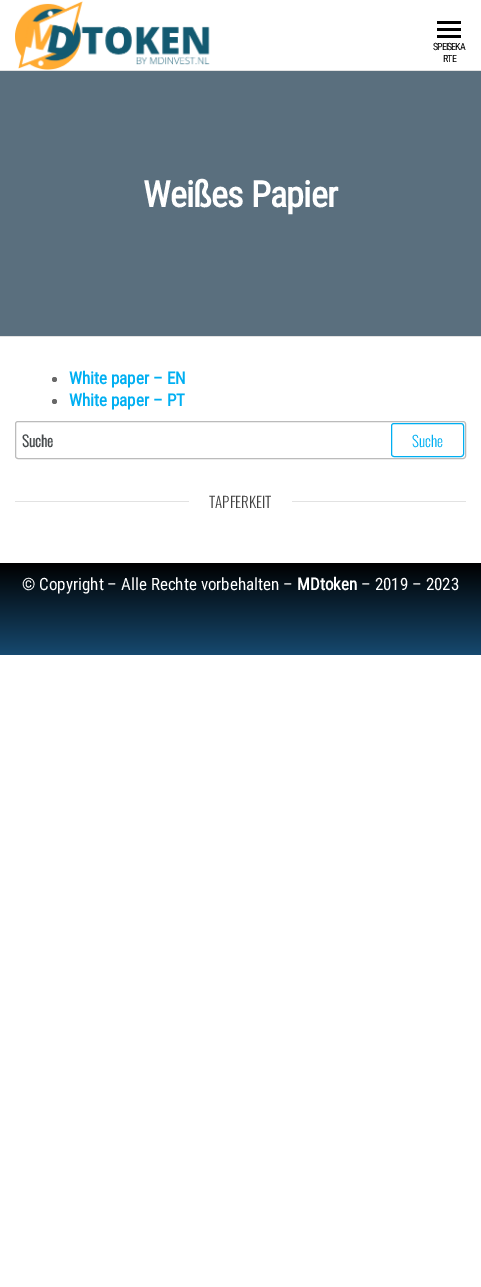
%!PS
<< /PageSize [481 1287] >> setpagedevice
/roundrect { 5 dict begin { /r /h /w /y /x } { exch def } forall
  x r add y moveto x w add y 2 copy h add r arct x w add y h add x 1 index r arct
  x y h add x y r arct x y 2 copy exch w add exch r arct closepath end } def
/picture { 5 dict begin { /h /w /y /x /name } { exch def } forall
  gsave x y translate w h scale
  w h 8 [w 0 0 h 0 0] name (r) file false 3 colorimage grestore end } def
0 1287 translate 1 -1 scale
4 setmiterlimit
1 setgray
0 0 481 1287 rectfill
0.886 setgray
0 70 481 1 rectfill
(img1.rgb) 15 1 195 69 picture
0 setgray
437 21 24 3 rectfill
437 28 24 3 rectfill
437 35 24 3 rectfill
/RobotoCondensed-Regular [10 0 0 -10 0 0] selectfont
433 50 moveto -1 0 (SPEISEKA) ashow
443 62 moveto -1 0 (RTE) ashow
0.886 setgray
0 336 481 1 rectfill
0.353 0.435 0.494 setrgbcolor
0 71 481 265 rectfill
/RobotoCondensed-Bold [36 0 0 -36 0 0] selectfont
1 setgray
143 207 moveto -0.75 0 (Weißes Papier) ashow
0.408 setgray
newpath 54.5 379.5 2.5 0 360 arc closepath fill
/RobotoCondensed-Bold [17 0 0 -17 0 0] selectfont
0 0.686 0.949 setrgbcolor
69 384 moveto (White paper – EN) show
0.408 setgray
newpath 54.5 401.5 2.5 0 360 arc closepath fill
0 0.686 0.949 setrgbcolor
69 406 moveto (White paper – PT) show
0.733 setgray
15.5 421.5 450 37 2.5 roundrect stroke
/Oswald-Bold [15 0 0 -15 0 0] selectfont
0.275 0.29 0.298 setrgbcolor
22 447 moveto (Suche) show
0 0.686 0.949 setrgbcolor
391.5 423.5 72 33 2.5 roundrect stroke
/Oswald-Light [15 0 0 -15 0 0] selectfont
412 447 moveto (Suche) show
0.886 setgray
15 501 451 1 rectfill
1 setgray
189 501 103 1 rectfill
0.251 setgray
209 508 moveto (TAPFERKEIT) show
gsave newpath 0 563 moveto 481 563 lineto 481 655 lineto 0 655 lineto closepath clip newpath
<< /ShadingType 2 /ColorSpace /DeviceRGB /Coords [241 563 241 655] /Extend [true true] /Function << /FunctionType 2 /Domain [0 1] /C0 [0 0 0] /C1 [0.086 0.286 0.435] /N 1 >> >> shfill grestore
/RobotoCondensed-Regular [17 0 0 -17 0 0] selectfont
1 setgray
22 590 moveto (© Copyright – Alle Rechte vorbehalten –) show
/RobotoCondensed-Bold [17 0 0 -17 0 0] selectfont
297 590 moveto (MDtoken) show
/RobotoCondensed-Regular [17 0 0 -17 0 0] selectfont
361 590 moveto (– 2019 – 2023) show
showpage
